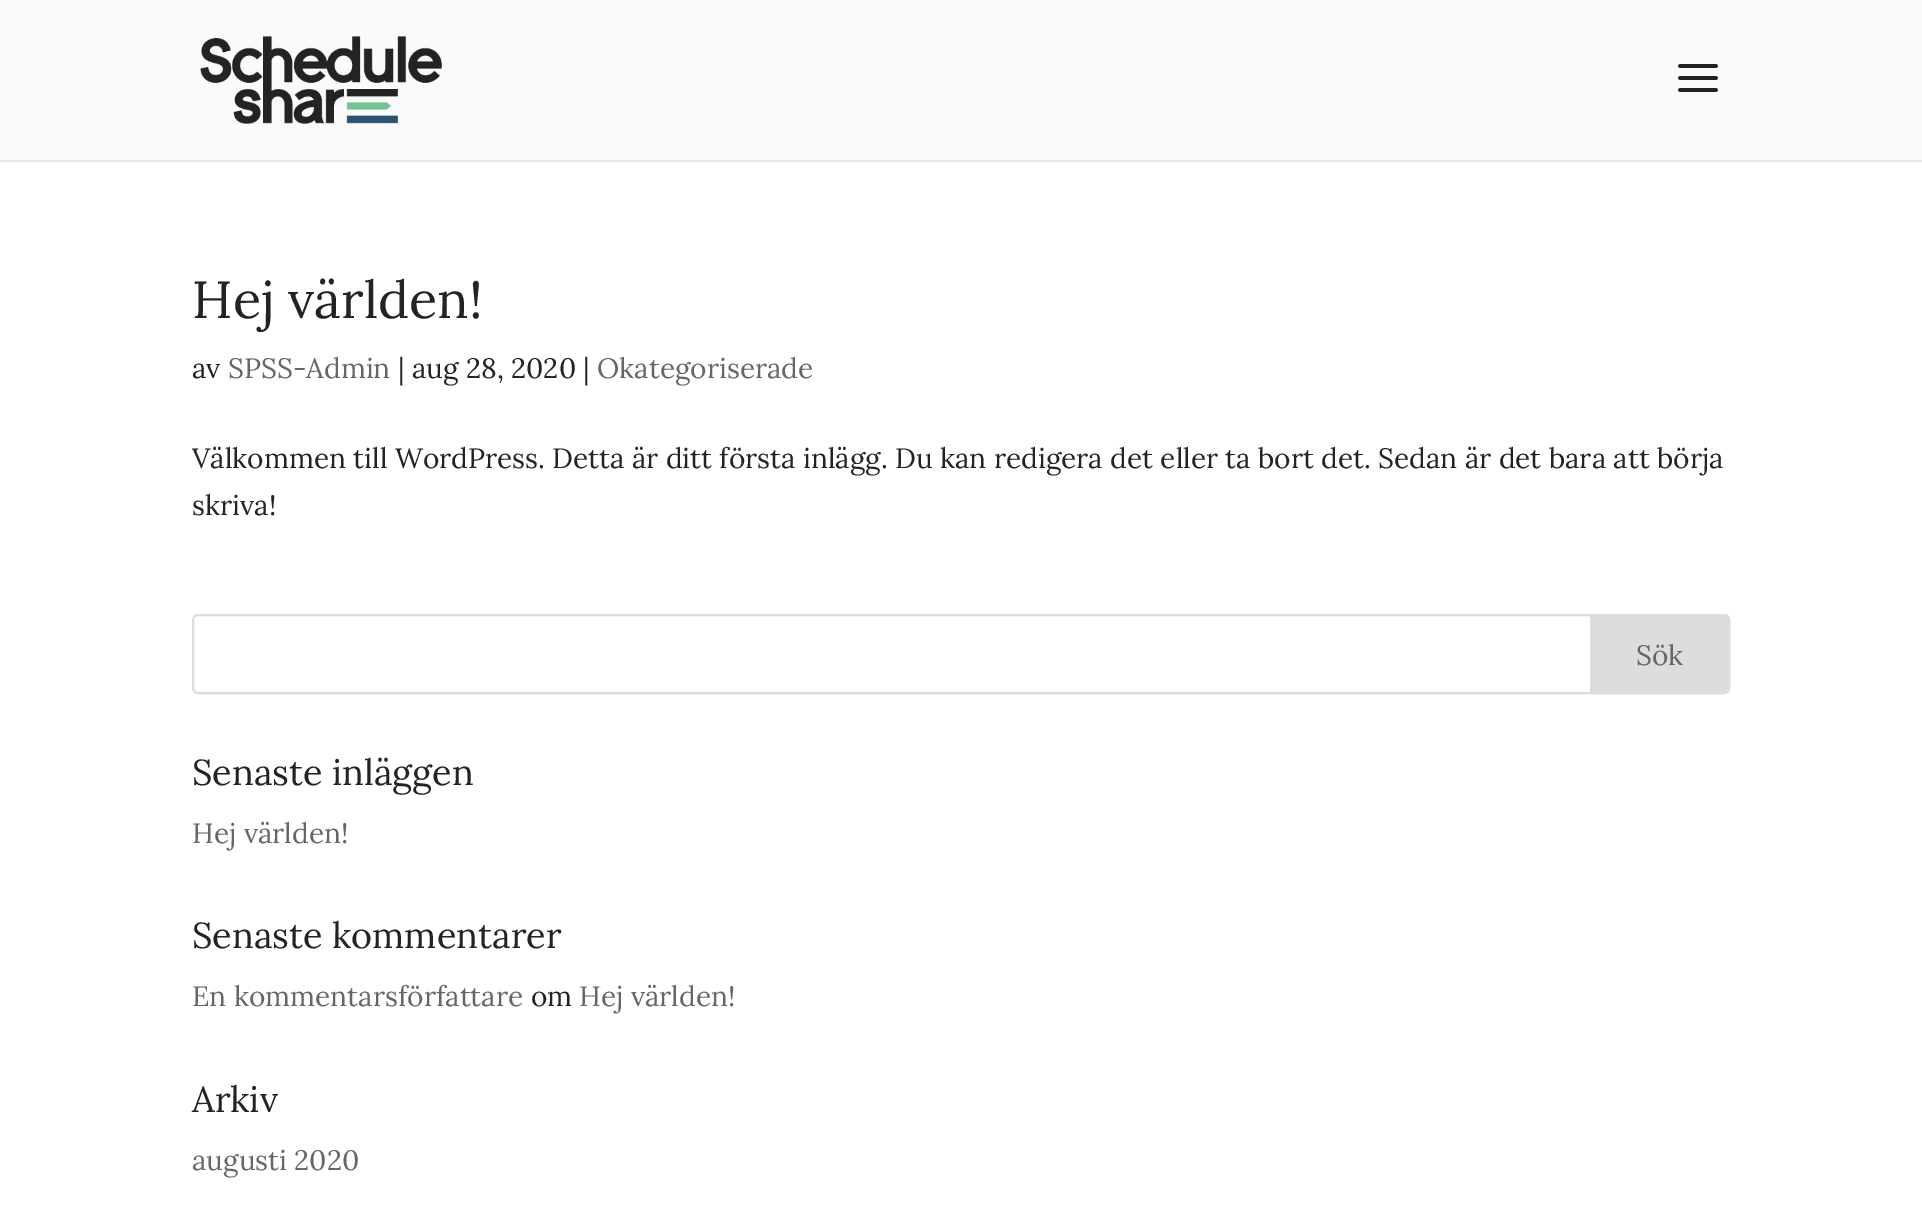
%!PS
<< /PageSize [1922 1210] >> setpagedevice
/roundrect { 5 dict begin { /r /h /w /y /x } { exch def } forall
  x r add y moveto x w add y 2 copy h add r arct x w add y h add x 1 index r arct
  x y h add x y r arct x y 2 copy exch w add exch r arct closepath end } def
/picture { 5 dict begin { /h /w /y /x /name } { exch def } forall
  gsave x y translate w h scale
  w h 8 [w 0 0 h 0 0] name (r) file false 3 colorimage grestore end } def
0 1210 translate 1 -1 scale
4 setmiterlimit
1 setgray
0 0 1922 1210 rectfill
0.902 setgray
0 160 1922 2 rectfill
0.98 setgray
0 0 1922 160 rectfill
(img1.rgb) 200 36 242 88 picture
(img2.rgb) 1678 64 40 28 picture
/Lora-Regular [52 0 0 -52 0 0] selectfont
0.137 setgray
192 318 moveto (Hej världen!) show
/Lora-Regular [28 0 0 -28 0 0] selectfont
192 378 moveto (av) show
0.4 setgray
228 378 moveto (SPSS-Admin) show
0.137 setgray
398 378 moveto (| aug 28, 2020 |) show
0.4 setgray
597 378 moveto (Okategoriserade) show
0.137 setgray
192 468 moveto (Välkommen till WordPress. Detta är ditt första inlägg. Du kan redigera det eller ta bort det. Sedan är det bara att börja) show
192 515 moveto (skriva!) show
0.867 setgray
2 setlinewidth
193 615 1536 78 5 roundrect stroke
newpath 1591 615 moveto 1724 615 lineto 1727 615 1729 617 1729 620 curveto 1729 688 lineto 1729 691 1727 693 1724 693 curveto 1591 693 lineto closepath gsave fill grestore
stroke
0.4 setgray
1636 665 moveto (Sök) show
/Lora-Regular [36 0 0 -36 0 0] selectfont
0.137 setgray
192 785 moveto (Senaste inläggen) show
/Lora-Regular [28 0 0 -28 0 0] selectfont
0.4 setgray
192 843 moveto (Hej världen!) show
/Lora-Regular [36 0 0 -36 0 0] selectfont
0.137 setgray
192 948 moveto (Senaste kommentarer) show
/Lora-Regular [28 0 0 -28 0 0] selectfont
0.4 setgray
192 1006 moveto (En kommentarsförfattare) show
0.137 setgray
531 1006 moveto (om) show
0.4 setgray
579 1006 moveto (Hej världen!) show
/Lora-Regular [36 0 0 -36 0 0] selectfont
0.137 setgray
192 1112 moveto (Arkiv) show
/Lora-Regular [28 0 0 -28 0 0] selectfont
0.4 setgray
192 1170 moveto (augusti 2020) show
showpage
